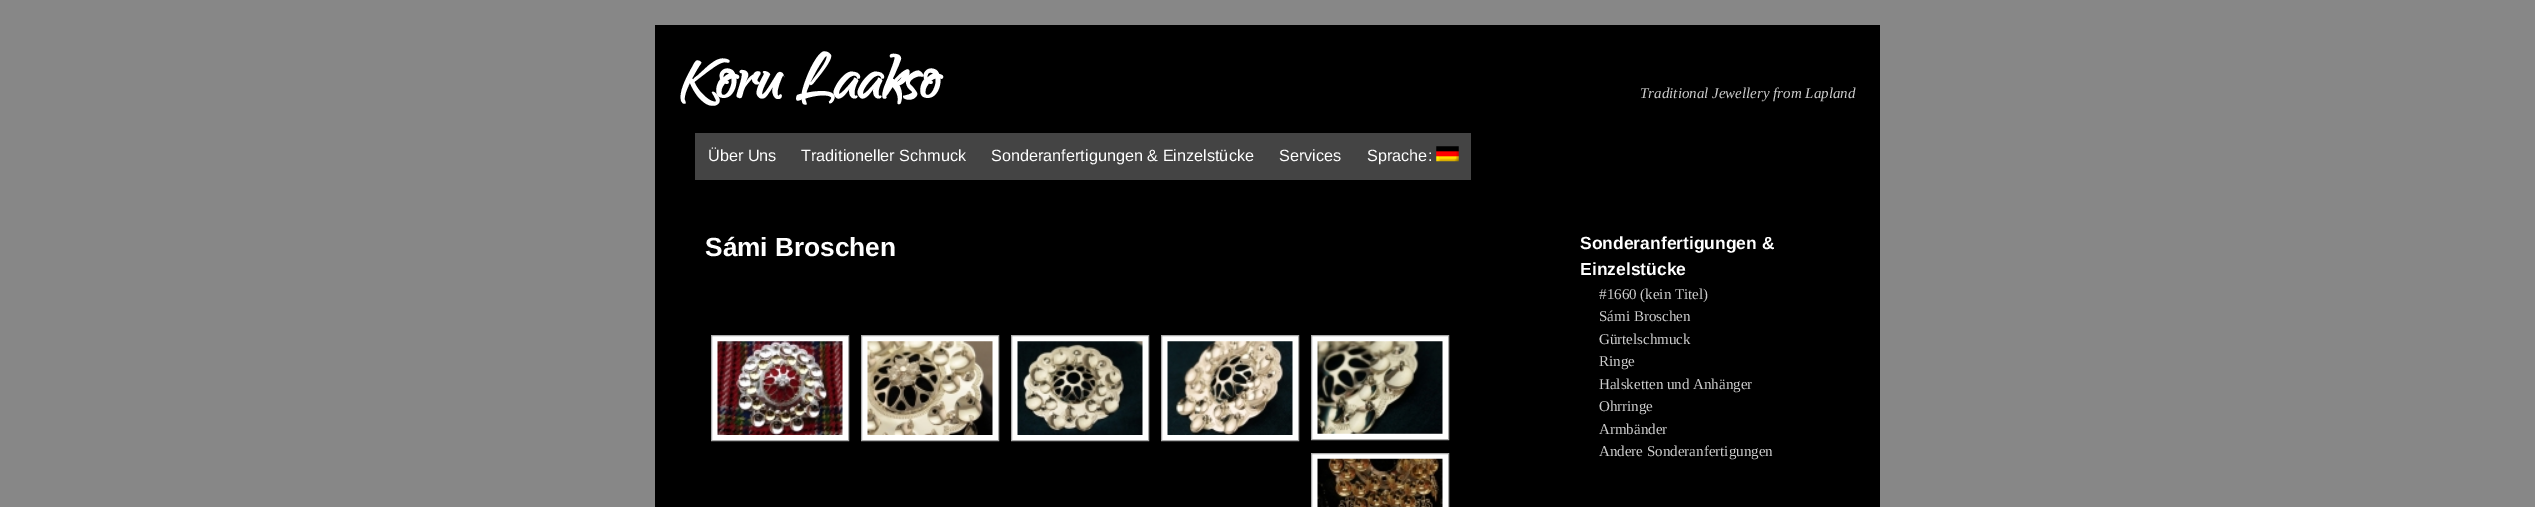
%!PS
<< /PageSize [2535 507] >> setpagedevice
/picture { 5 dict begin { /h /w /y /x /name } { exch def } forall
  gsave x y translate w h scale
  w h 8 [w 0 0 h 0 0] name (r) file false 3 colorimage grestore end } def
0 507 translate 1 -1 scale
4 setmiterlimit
0.529 setgray
0 0 2535 507 rectfill
0 setgray
655 25 1225 482 rectfill
/Qwigley-Bold [80 0 0 -80 0 0] selectfont
1 setgray
680 98 moveto (Koru Laakso) show
/LiberationSerif-Italic [15 0 0 -15 0 0] selectfont
0.8 setgray
1640 98 moveto (Traditional Jewellery from Lapland) show
0.267 setgray
695 133 776 47 rectfill
/LiberationSans-Regular [16.25 0 0 -16.25 0 0] selectfont
1 setgray
708 161 moveto (Über Uns) show
801 161 moveto (Traditioneller Schmuck) show
991 161 moveto (Sonderanfertigungen & Einzelstücke) show
1279 161 moveto (Services) show
1367 161 moveto (Sprache:) show
(img1.rgb) 1436 146 23 16 picture
/LiberationSans-Bold [26.25 0 0 -26.25 0 0] selectfont
705 256 moveto (Sámi Broschen) show
newpath 711.5 335.5 moveto 848.5 335.5 lineto 848.5 440.5 lineto 711.5 440.5 lineto closepath gsave fill grestore
0.663 setgray
stroke
(img2.rgb) 717 341 126 94 picture
1 setgray
newpath 861.5 335.5 moveto 998.5 335.5 lineto 998.5 440.5 lineto 861.5 440.5 lineto closepath gsave fill grestore
0.663 setgray
stroke
(img3.rgb) 867 341 126 94 picture
1 setgray
newpath 1011.5 335.5 moveto 1148.5 335.5 lineto 1148.5 440.5 lineto 1011.5 440.5 lineto closepath gsave fill grestore
0.663 setgray
stroke
(img4.rgb) 1017 341 126 94 picture
1 setgray
newpath 1161.5 335.5 moveto 1298.5 335.5 lineto 1298.5 440.5 lineto 1161.5 440.5 lineto closepath gsave fill grestore
0.663 setgray
stroke
(img5.rgb) 1167 341 126 94 picture
1 setgray
newpath 1311.5 335.5 moveto 1448.5 335.5 lineto 1448.5 439.5 lineto 1311.5 439.5 lineto closepath gsave fill grestore
0.663 setgray
stroke
(img6.rgb) 1317 341 126 93 picture
1 setgray
newpath 1311.5 453.5 moveto 1448.5 453.5 lineto 1448.5 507.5 lineto 1311.5 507.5 lineto closepath gsave fill grestore
0.663 setgray
stroke
(img7.rgb) 1317 458 126 49 picture
/LiberationSans-Bold [17.5 0 0 -17.5 0 0] selectfont
1 setgray
1580 249 moveto (Sonderanfertigungen &) show
1580 275 moveto (Einzelstücke) show
/LiberationSerif-Regular [15 0 0 -15 0 0] selectfont
0.8 setgray
1599 299 moveto (#1660 \(kein Titel\)) show
1599 321 moveto (Sámi Broschen) show
1599 344 moveto (Gürtelschmuck) show
1599 366 moveto (Ringe) show
1599 389 moveto (Halsketten und Anhänger) show
1599 411 moveto (Ohrringe) show
1599 434 moveto (Armbänder) show
1599 456 moveto (Andere Sonderanfertigungen) show
showpage
